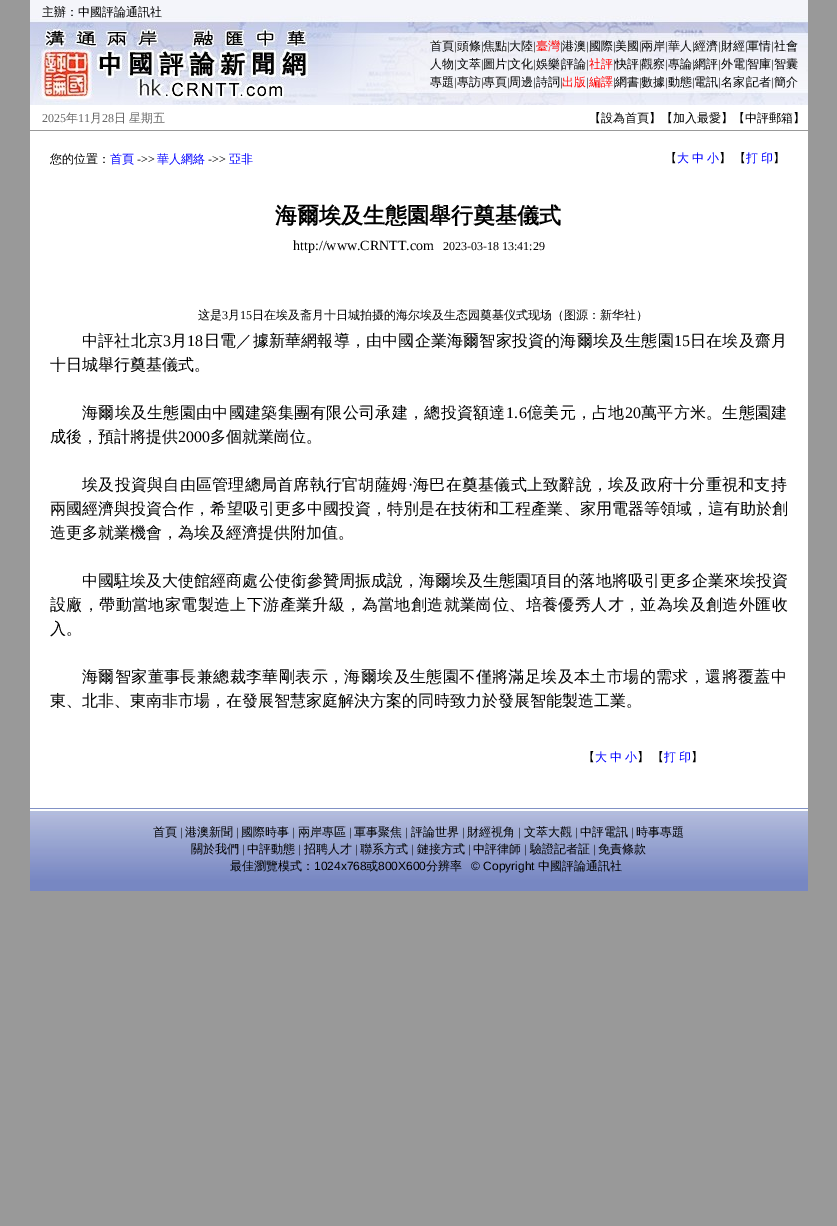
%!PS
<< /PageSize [837 1226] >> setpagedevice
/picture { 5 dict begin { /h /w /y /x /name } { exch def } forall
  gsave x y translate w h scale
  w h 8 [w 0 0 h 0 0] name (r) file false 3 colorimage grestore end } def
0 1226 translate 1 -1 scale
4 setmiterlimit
0.6 setgray
0 0 837 1226 rectfill
(img1.rgb) 30 0 778 105 picture
/WenQuanYiZenHei-Medium [12 0 0 -12 0 0] selectfont
0 setgray
42 16 moveto (主辦：中國評論通訊社) show
430 50 moveto (首頁) show
/LiberationSerif-Regular [12 0 0 -12 0 0] selectfont
454 50 moveto (|) show
/WenQuanYiZenHei-Medium [12 0 0 -12 0 0] selectfont
457 50 moveto (頭條) show
/LiberationSerif-Regular [12 0 0 -12 0 0] selectfont
481 50 moveto (|) show
/WenQuanYiZenHei-Medium [12 0 0 -12 0 0] selectfont
483 50 moveto (焦點) show
/LiberationSerif-Regular [12 0 0 -12 0 0] selectfont
507 50 moveto (|) show
/WenQuanYiZenHei-Medium [12 0 0 -12 0 0] selectfont
509 50 moveto (大陸) show
/LiberationSerif-Regular [12 0 0 -12 0 0] selectfont
533 50 moveto (|) show
/WenQuanYiZenHei-Medium [12 0 0 -12 0 0] selectfont
1 0 0 setrgbcolor
536 50 moveto (臺灣) show
/LiberationSerif-Regular [12 0 0 -12 0 0] selectfont
0 setgray
560 50 moveto (|) show
/WenQuanYiZenHei-Medium [12 0 0 -12 0 0] selectfont
562 50 moveto (港澳) show
/LiberationSerif-Regular [12 0 0 -12 0 0] selectfont
586 50 moveto (|) show
/WenQuanYiZenHei-Medium [12 0 0 -12 0 0] selectfont
589 50 moveto (國際) show
/LiberationSerif-Regular [12 0 0 -12 0 0] selectfont
613 50 moveto (|) show
/WenQuanYiZenHei-Medium [12 0 0 -12 0 0] selectfont
615 50 moveto (美國) show
/LiberationSerif-Regular [12 0 0 -12 0 0] selectfont
639 50 moveto (|) show
/WenQuanYiZenHei-Medium [12 0 0 -12 0 0] selectfont
641 50 moveto (兩岸) show
/LiberationSerif-Regular [12 0 0 -12 0 0] selectfont
665 50 moveto (|) show
/WenQuanYiZenHei-Medium [12 0 0 -12 0 0] selectfont
668 50 moveto (華人) show
/LiberationSerif-Regular [12 0 0 -12 0 0] selectfont
692 50 moveto (|) show
/WenQuanYiZenHei-Medium [12 0 0 -12 0 0] selectfont
694 50 moveto (經濟) show
/LiberationSerif-Regular [12 0 0 -12 0 0] selectfont
718 50 moveto (|) show
/WenQuanYiZenHei-Medium [12 0 0 -12 0 0] selectfont
721 50 moveto (財經) show
/LiberationSerif-Regular [12 0 0 -12 0 0] selectfont
745 50 moveto (|) show
/WenQuanYiZenHei-Medium [12 0 0 -12 0 0] selectfont
747 50 moveto (軍情) show
/LiberationSerif-Regular [12 0 0 -12 0 0] selectfont
771 50 moveto (|) show
/WenQuanYiZenHei-Medium [12 0 0 -12 0 0] selectfont
774 50 moveto (社會) show
430 68 moveto (人物) show
/LiberationSerif-Regular [12 0 0 -12 0 0] selectfont
454 68 moveto (|) show
/WenQuanYiZenHei-Medium [12 0 0 -12 0 0] selectfont
457 68 moveto (文萃) show
/LiberationSerif-Regular [12 0 0 -12 0 0] selectfont
481 68 moveto (|) show
/WenQuanYiZenHei-Medium [12 0 0 -12 0 0] selectfont
483 68 moveto (圖片) show
/LiberationSerif-Regular [12 0 0 -12 0 0] selectfont
507 68 moveto (|) show
/WenQuanYiZenHei-Medium [12 0 0 -12 0 0] selectfont
509 68 moveto (文化) show
/LiberationSerif-Regular [12 0 0 -12 0 0] selectfont
533 68 moveto (|) show
/WenQuanYiZenHei-Medium [12 0 0 -12 0 0] selectfont
536 68 moveto (娛樂) show
/LiberationSerif-Regular [12 0 0 -12 0 0] selectfont
560 68 moveto (|) show
/WenQuanYiZenHei-Medium [12 0 0 -12 0 0] selectfont
562 68 moveto (評論) show
/LiberationSerif-Regular [12 0 0 -12 0 0] selectfont
586 68 moveto (|) show
/WenQuanYiZenHei-Medium [12 0 0 -12 0 0] selectfont
1 0 0 setrgbcolor
589 68 moveto (社評) show
/LiberationSerif-Regular [12 0 0 -12 0 0] selectfont
0 setgray
613 68 moveto (|) show
/WenQuanYiZenHei-Medium [12 0 0 -12 0 0] selectfont
615 68 moveto (快評) show
641 68 moveto (觀察) show
668 68 moveto (專論) show
694 68 moveto (網評) show
721 68 moveto (外電) show
747 68 moveto (智庫) show
774 68 moveto (智囊) show
/LiberationSerif-Regular [12 0 0 -12 0 0] selectfont
639 68 moveto (|) show
665 68 moveto (|) show
692 68 moveto (|) show
718 68 moveto (|) show
745 68 moveto (|) show
771 68 moveto (|) show
/WenQuanYiZenHei-Medium [12 0 0 -12 0 0] selectfont
430 86 moveto (專題) show
/LiberationSerif-Regular [12 0 0 -12 0 0] selectfont
454 86 moveto (|) show
/WenQuanYiZenHei-Medium [12 0 0 -12 0 0] selectfont
457 86 moveto (專訪) show
/LiberationSerif-Regular [12 0 0 -12 0 0] selectfont
481 86 moveto (|) show
/WenQuanYiZenHei-Medium [12 0 0 -12 0 0] selectfont
483 86 moveto (專頁) show
/LiberationSerif-Regular [12 0 0 -12 0 0] selectfont
507 86 moveto (|) show
/WenQuanYiZenHei-Medium [12 0 0 -12 0 0] selectfont
509 86 moveto (周邊) show
/LiberationSerif-Regular [12 0 0 -12 0 0] selectfont
533 86 moveto (|) show
/WenQuanYiZenHei-Medium [12 0 0 -12 0 0] selectfont
536 86 moveto (詩詞) show
/LiberationSerif-Regular [12 0 0 -12 0 0] selectfont
560 86 moveto (|) show
/WenQuanYiZenHei-Medium [12 0 0 -12 0 0] selectfont
1 0 0 setrgbcolor
562 86 moveto (出版) show
/LiberationSerif-Regular [12 0 0 -12 0 0] selectfont
0 setgray
586 86 moveto (|) show
/WenQuanYiZenHei-Medium [12 0 0 -12 0 0] selectfont
1 0 0 setrgbcolor
589 86 moveto (編譯) show
/LiberationSerif-Regular [12 0 0 -12 0 0] selectfont
0 setgray
613 86 moveto (|) show
/WenQuanYiZenHei-Medium [12 0 0 -12 0 0] selectfont
615 86 moveto (網書) show
/LiberationSerif-Regular [12 0 0 -12 0 0] selectfont
639 86 moveto (|) show
/WenQuanYiZenHei-Medium [12 0 0 -12 0 0] selectfont
641 86 moveto (數據) show
/LiberationSerif-Regular [12 0 0 -12 0 0] selectfont
665 86 moveto (|) show
/WenQuanYiZenHei-Medium [12 0 0 -12 0 0] selectfont
668 86 moveto (動態) show
/LiberationSerif-Regular [12 0 0 -12 0 0] selectfont
692 86 moveto (|) show
/WenQuanYiZenHei-Medium [12 0 0 -12 0 0] selectfont
694 86 moveto (電訊) show
/LiberationSerif-Regular [12 0 0 -12 0 0] selectfont
718 86 moveto (|) show
/WenQuanYiZenHei-Medium [12 0 0 -12 0 0] selectfont
721 86 moveto (名家) show
/LiberationSerif-Regular [12 0 0 -12 0 0] selectfont
745 86 moveto (|) show
/WenQuanYiZenHei-Medium [12 0 0 -12 0 0] selectfont
747 86 moveto (記者) show
/LiberationSerif-Regular [12 0 0 -12 0 0] selectfont
771 86 moveto (|) show
/WenQuanYiZenHei-Medium [12 0 0 -12 0 0] selectfont
774 86 moveto (簡介) show
1 setgray
30 105 778 25 rectfill
/LiberationSerif-Regular [12 0 0 -12 0 0] selectfont
0.4 setgray
42 122 moveto (2025) show
/WenQuanYiZenHei-Medium [12 0 0 -12 0 0] selectfont
66 122 moveto (年) show
/LiberationSerif-Regular [12 0 0 -12 0 0] selectfont
78 122 moveto (11) show
/WenQuanYiZenHei-Medium [12 0 0 -12 0 0] selectfont
90 122 moveto (月) show
/LiberationSerif-Regular [12 0 0 -12 0 0] selectfont
102 122 moveto (28) show
/WenQuanYiZenHei-Medium [12 0 0 -12 0 0] selectfont
114 122 moveto -1 0 32 (日 星期五) widthshow
0 setgray
589 122 moveto (【設為首頁】【加入最愛】【中評郵箱】) show
1 setgray
30 131 778 677 rectfill
0 setgray
50 163 moveto (您的位置：) show
0 0 1 setrgbcolor
110 163 moveto (首頁) show
/LiberationSerif-Regular [12 0 0 -12 0 0] selectfont
0 setgray
137 163 moveto (->>) show
/WenQuanYiZenHei-Medium [12 0 0 -12 0 0] selectfont
0 0 1 setrgbcolor
157 163 moveto (華人網絡) show
/LiberationSerif-Regular [12 0 0 -12 0 0] selectfont
0 setgray
208 163 moveto (->>) show
/WenQuanYiZenHei-Medium [12 0 0 -12 0 0] selectfont
0 0 1 setrgbcolor
229 163 moveto (亞非) show
0 setgray
665 162 moveto (【) show
0 0 1 setrgbcolor
677 162 moveto (大) show
692 162 moveto (中) show
707 162 moveto (小) show
0 setgray
719 162 moveto (】) show
734 162 moveto (【) show
0 0 1 setrgbcolor
746 162 moveto -1 0 32 (打 印) widthshow
0 setgray
773 162 moveto (】) show
/WenQuanYiZenHei-Bold [22 0 0 -22 0 0] selectfont
275 223 moveto (海爾埃及生態園舉行奠基儀式) show
/LiberationSerif-Regular [14 0 0 -14 0 0] selectfont
293 250 moveto (http://www.CRNTT.com) show
/LiberationSerif-Regular [12 0 0 -12 0 0] selectfont
443 250 moveto (2023-03-18 13:41:29) show
/WenQuanYiZenHei-Medium [12 0 0 -12 0 0] selectfont
198 319 moveto (这是) show
/LiberationSerif-Regular [12 0 0 -12 0 0] selectfont
222 319 moveto (3) show
/WenQuanYiZenHei-Medium [12 0 0 -12 0 0] selectfont
228 319 moveto (月) show
/LiberationSerif-Regular [12 0 0 -12 0 0] selectfont
240 319 moveto (15) show
/WenQuanYiZenHei-Medium [12 0 0 -12 0 0] selectfont
252 319 moveto (日在埃及斋月十日城拍摄的海尔埃及生态园奠基仪式现场（图源：新华社）) show
/WenQuanYiZenHei-Medium [16 0 0 -16 0 0] selectfont
82 346 moveto 0.2 0 (中評社北京) ashow
/LiberationSerif-Regular [16 0 0 -16 0 0] selectfont
163 346 moveto 0.2 0 (3) ashow
/WenQuanYiZenHei-Medium [16 0 0 -16 0 0] selectfont
171 346 moveto 0.2 0 (月) ashow
/LiberationSerif-Regular [16 0 0 -16 0 0] selectfont
187 346 moveto 0.2 0 (18) ashow
/WenQuanYiZenHei-Medium [16 0 0 -16 0 0] selectfont
204 346 moveto 0.2 0 (日電／據新華網報導，由中國企業海爾智家投資的海爾埃及生態園) ashow
/LiberationSerif-Regular [16 0 0 -16 0 0] selectfont
674 346 moveto 0.2 0 (15) ashow
/WenQuanYiZenHei-Medium [16 0 0 -16 0 0] selectfont
690 346 moveto 0.2 0 (日在埃及齋月) ashow
50 370 moveto (十日城舉行奠基儀式。) show
82 418 moveto 0.3 0 (海爾埃及生態園由中國建築集團有限公司承建，總投資額達) ashow
/LiberationSerif-Regular [16 0 0 -16 0 0] selectfont
506 418 moveto 0.3 0 (1.6) ashow
/WenQuanYiZenHei-Medium [16 0 0 -16 0 0] selectfont
527 418 moveto 0.3 0 (億美元，占地) ashow
/LiberationSerif-Regular [16 0 0 -16 0 0] selectfont
625 418 moveto 0.3 0 (20) ashow
/WenQuanYiZenHei-Medium [16 0 0 -16 0 0] selectfont
641 418 moveto 0.3 0 (萬平方米。生態園建) ashow
50 442 moveto (成後，預計將提供) show
/LiberationSerif-Regular [16 0 0 -16 0 0] selectfont
178 442 moveto (2000) show
/WenQuanYiZenHei-Medium [16 0 0 -16 0 0] selectfont
210 442 moveto (多個就業崗位。) show
82 490 moveto 0.25 0 (埃及投資與自由區管理總局首席執行官胡薩姆) ashow
/LiberationSerif-Regular [16 0 0 -16 0 0] selectfont
408 490 moveto 0.25 0 (·) ashow
/WenQuanYiZenHei-Medium [16 0 0 -16 0 0] selectfont
413 490 moveto 0.25 0 (海巴在奠基儀式上致辭說，埃及政府十分重視和支持) ashow
50 514 moveto 0.05 0 (兩國經濟與投資合作，希望吸引更多中國投資，特別是在技術和工程產業、家用電器等領域，這有助於創) ashow
50 538 moveto (造更多就業機會，為埃及經濟提供附加值。) show
82 586 moveto 0.05 0 (中國駐埃及大使館經商處公使銜參贊周振成說，海爾埃及生態園項目的落地將吸引更多企業來埃投資) ashow
50 610 moveto 0.4 0 (設廠，帶動當地家電製造上下游產業升級，為當地創造就業崗位、培養優秀人才，並為埃及創造外匯收) ashow
50 634 moveto (入。) show
82 682 moveto 0.4 0 (海爾智家董事長兼總裁李華剛表示，海爾埃及生態園不僅將滿足埃及本土市場的需求，還將覆蓋中) ashow
50 706 moveto (東、北非、東南非市場，在發展智慧家庭解決方案的同時致力於發展智能製造工業。) show
/WenQuanYiZenHei-Medium [12 0 0 -12 0 0] selectfont
583 761 moveto (【) show
0 0 1 setrgbcolor
595 761 moveto (大) show
610 761 moveto (中) show
625 761 moveto (小) show
0 setgray
637 761 moveto (】) show
652 761 moveto (【) show
0 0 1 setrgbcolor
664 761 moveto -1 0 32 (打 印) widthshow
0 setgray
691 761 moveto (】) show
(img2.rgb) 30 808 778 83 picture
153 836 moveto (首頁) show
/LiberationSerif-Regular [12 0 0 -12 0 0] selectfont
180 836 moveto (|) show
/WenQuanYiZenHei-Medium [12 0 0 -12 0 0] selectfont
185 836 moveto (港澳新聞) show
/LiberationSerif-Regular [12 0 0 -12 0 0] selectfont
236 836 moveto (|) show
/WenQuanYiZenHei-Medium [12 0 0 -12 0 0] selectfont
241 836 moveto (國際時事) show
/LiberationSerif-Regular [12 0 0 -12 0 0] selectfont
292 836 moveto (|) show
/WenQuanYiZenHei-Medium [12 0 0 -12 0 0] selectfont
298 836 moveto (兩岸專區) show
/LiberationSerif-Regular [12 0 0 -12 0 0] selectfont
349 836 moveto (|) show
/WenQuanYiZenHei-Medium [12 0 0 -12 0 0] selectfont
354 836 moveto (軍事聚焦) show
/LiberationSerif-Regular [12 0 0 -12 0 0] selectfont
405 836 moveto (|) show
/WenQuanYiZenHei-Medium [12 0 0 -12 0 0] selectfont
411 836 moveto (評論世界) show
/LiberationSerif-Regular [12 0 0 -12 0 0] selectfont
462 836 moveto (|) show
/WenQuanYiZenHei-Medium [12 0 0 -12 0 0] selectfont
467 836 moveto (財經視角) show
/LiberationSerif-Regular [12 0 0 -12 0 0] selectfont
518 836 moveto (|) show
/WenQuanYiZenHei-Medium [12 0 0 -12 0 0] selectfont
524 836 moveto (文萃大觀) show
/LiberationSerif-Regular [12 0 0 -12 0 0] selectfont
575 836 moveto (|) show
/WenQuanYiZenHei-Medium [12 0 0 -12 0 0] selectfont
580 836 moveto (中評電訊) show
/LiberationSerif-Regular [12 0 0 -12 0 0] selectfont
631 836 moveto (|) show
/WenQuanYiZenHei-Medium [12 0 0 -12 0 0] selectfont
636 836 moveto (時事專題) show
191 853 moveto (關於我們) show
/LiberationSerif-Regular [12 0 0 -12 0 0] selectfont
242 853 moveto (|) show
/WenQuanYiZenHei-Medium [12 0 0 -12 0 0] selectfont
247 853 moveto (中評動態) show
/LiberationSerif-Regular [12 0 0 -12 0 0] selectfont
298 853 moveto (|) show
/WenQuanYiZenHei-Medium [12 0 0 -12 0 0] selectfont
304 853 moveto (招聘人才) show
/LiberationSerif-Regular [12 0 0 -12 0 0] selectfont
355 853 moveto (|) show
/WenQuanYiZenHei-Medium [12 0 0 -12 0 0] selectfont
360 853 moveto (聯系方式) show
/LiberationSerif-Regular [12 0 0 -12 0 0] selectfont
411 853 moveto (|) show
/WenQuanYiZenHei-Medium [12 0 0 -12 0 0] selectfont
417 853 moveto (鏈接方式) show
/LiberationSerif-Regular [12 0 0 -12 0 0] selectfont
468 853 moveto (|) show
/WenQuanYiZenHei-Medium [12 0 0 -12 0 0] selectfont
473 853 moveto (中評律師) show
/LiberationSerif-Regular [12 0 0 -12 0 0] selectfont
524 853 moveto (|) show
/WenQuanYiZenHei-Medium [12 0 0 -12 0 0] selectfont
530 853 moveto (驗證記者証) show
/LiberationSerif-Regular [12 0 0 -12 0 0] selectfont
593 853 moveto (|) show
/WenQuanYiZenHei-Medium [12 0 0 -12 0 0] selectfont
598 853 moveto (免責條款) show
230 870 moveto (最佳瀏覽模式：) show
/LiberationSans-Regular [12 0 0 -12 0 0] selectfont
314 870 moveto (1024x768) show
/WenQuanYiZenHei-Medium [12 0 0 -12 0 0] selectfont
366 870 moveto (或) show
/LiberationSans-Regular [12 0 0 -12 0 0] selectfont
378 870 moveto (800X600) show
/WenQuanYiZenHei-Medium [12 0 0 -12 0 0] selectfont
426 870 moveto (分辨率) show
/LiberationSans-Regular [12 0 0 -12 0 0] selectfont
471 870 moveto (© Copyright) show
/WenQuanYiZenHei-Medium [12 0 0 -12 0 0] selectfont
538 870 moveto (中國評論通訊社) show
showpage
